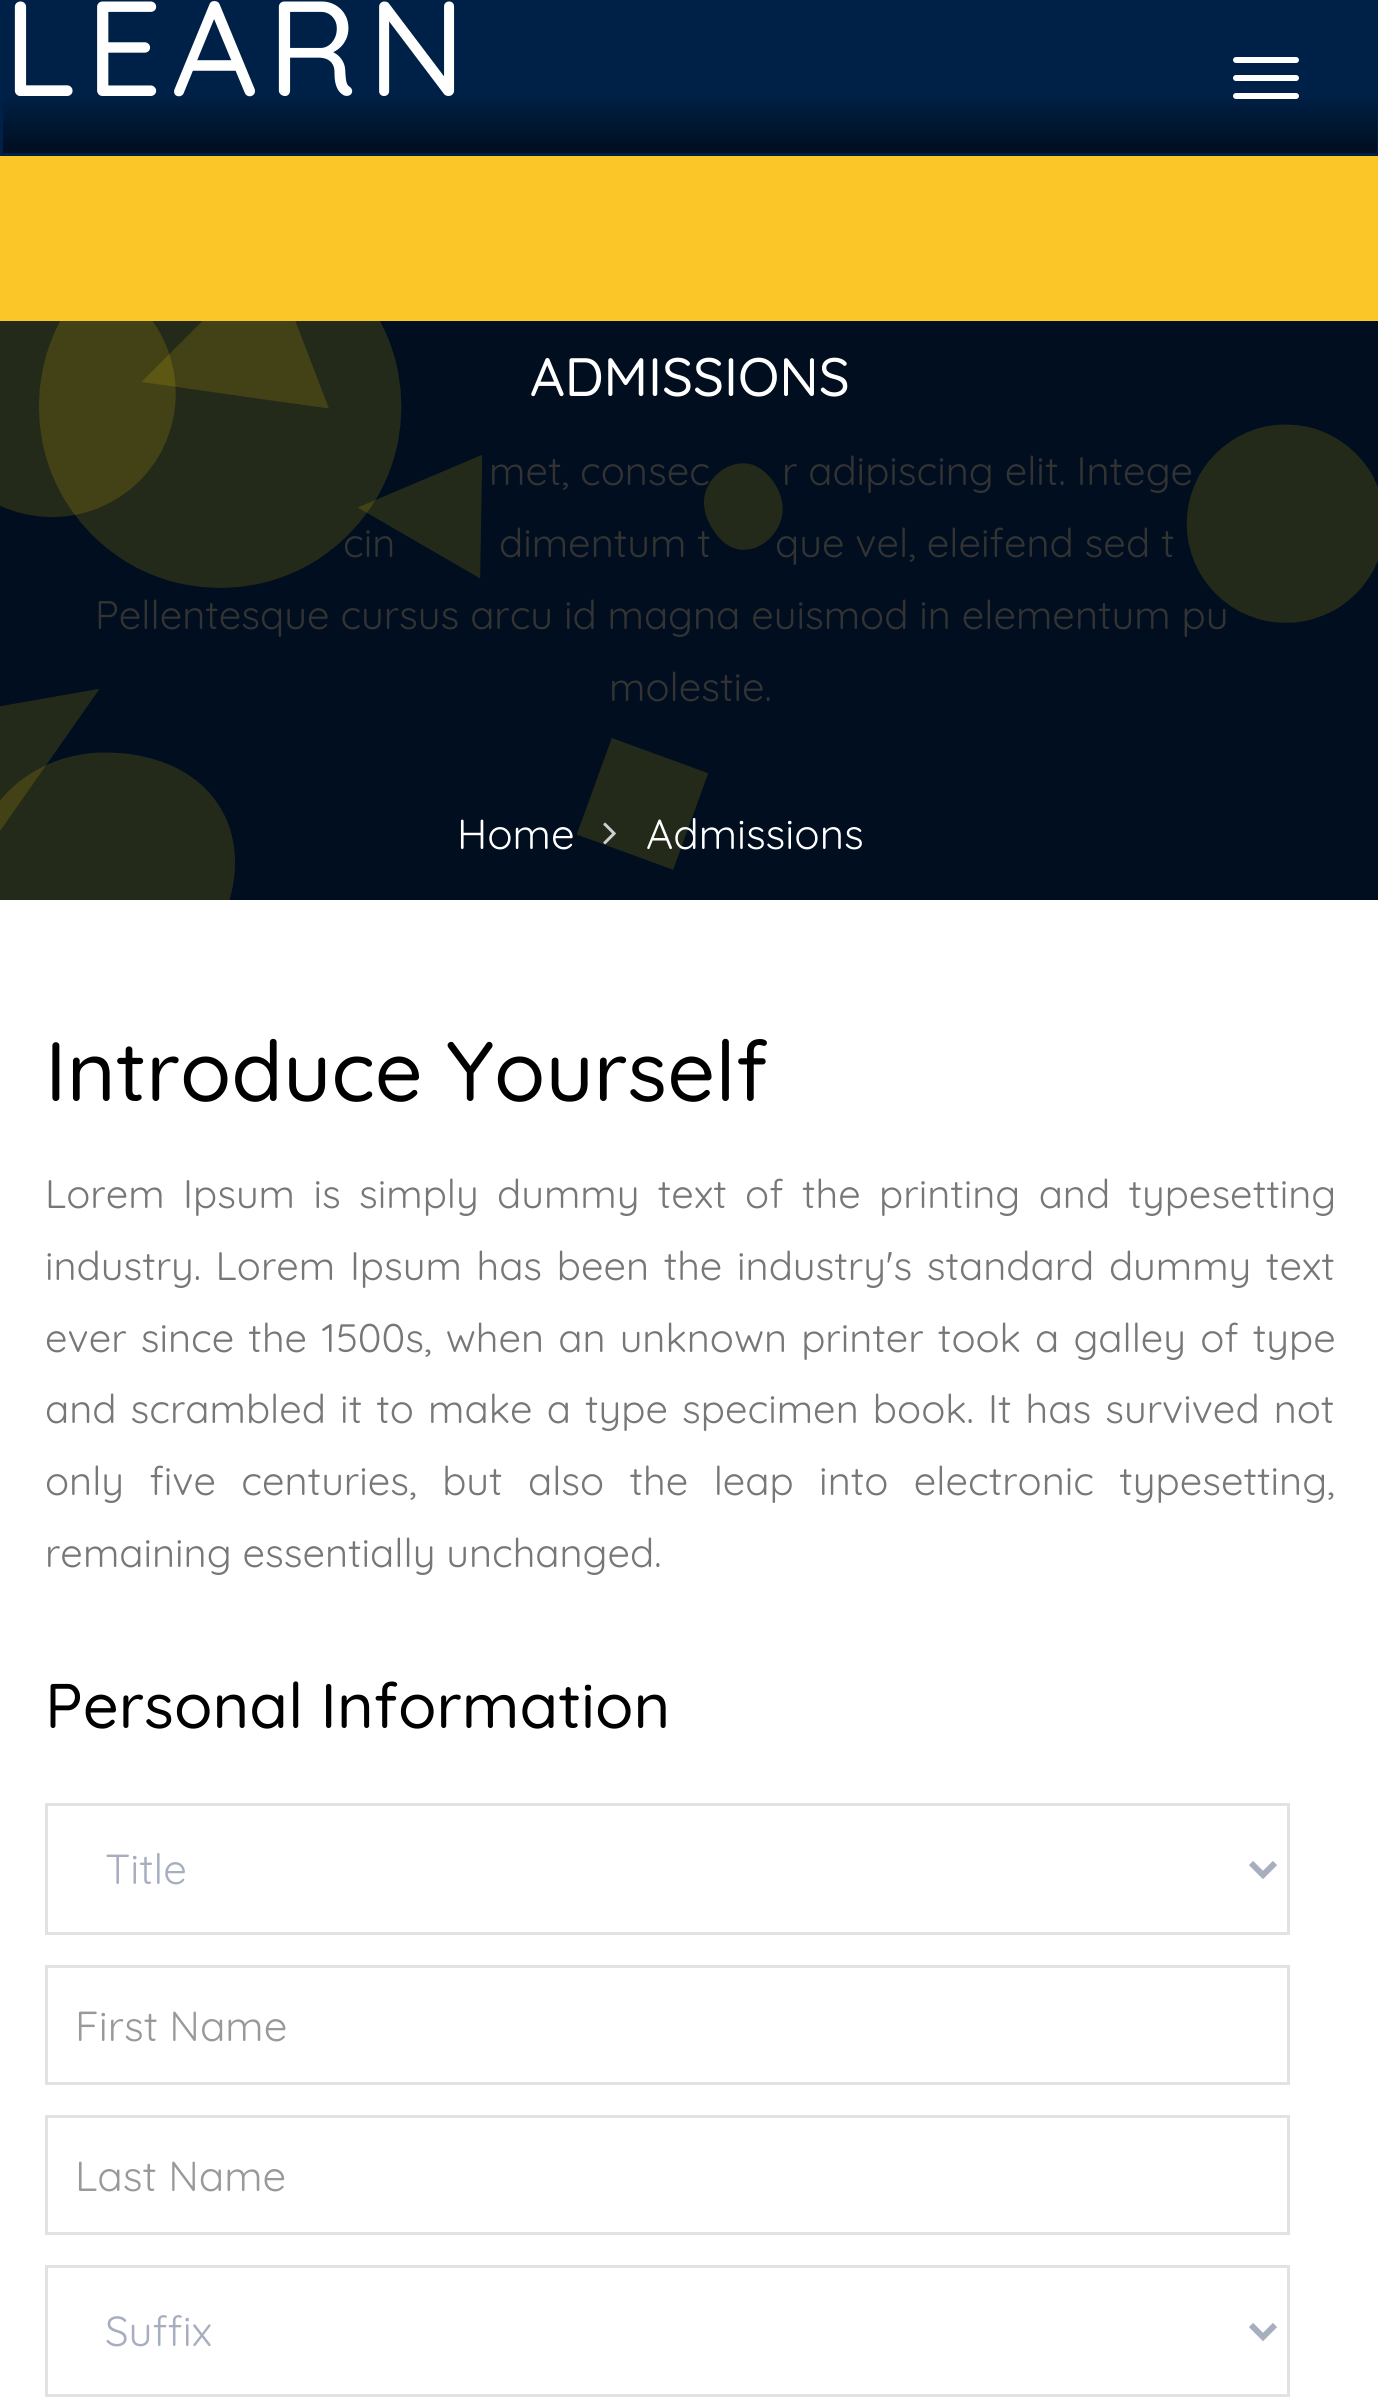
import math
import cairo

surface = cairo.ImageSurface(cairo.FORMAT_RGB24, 1378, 2397)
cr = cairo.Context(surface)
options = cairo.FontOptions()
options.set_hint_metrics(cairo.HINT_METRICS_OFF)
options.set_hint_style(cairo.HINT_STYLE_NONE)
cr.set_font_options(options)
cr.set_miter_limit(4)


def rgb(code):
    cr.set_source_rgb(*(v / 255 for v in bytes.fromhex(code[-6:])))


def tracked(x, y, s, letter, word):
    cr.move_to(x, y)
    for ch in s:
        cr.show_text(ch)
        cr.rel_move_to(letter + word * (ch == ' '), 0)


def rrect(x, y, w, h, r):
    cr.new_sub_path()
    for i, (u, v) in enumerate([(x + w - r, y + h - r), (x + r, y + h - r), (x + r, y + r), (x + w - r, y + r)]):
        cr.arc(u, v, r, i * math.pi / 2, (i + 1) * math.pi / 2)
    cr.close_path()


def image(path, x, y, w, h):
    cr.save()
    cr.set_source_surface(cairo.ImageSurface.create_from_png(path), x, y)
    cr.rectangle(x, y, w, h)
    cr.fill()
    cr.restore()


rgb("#ffffff")
cr.paint()
gradient = cairo.LinearGradient(690, 3, 690, 153)
gradient.add_color_stop_rgba(0.6, 0, 0.129, 0.278, 1)
gradient.add_color_stop_rgba(1, 0, 0.055, 0.122, 1)
cr.set_source(gradient)
cr.rectangle(3, 3, 1374, 150)
cr.fill()
cr.rectangle(1.5, 1.5, 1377, 153)
rgb("#002147")
cr.set_line_width(3)
cr.stroke()
rgb("#ffffff")
rrect(1233, 57, 66, 6, 3)
cr.fill()
rrect(1233, 75, 66, 6, 3)
cr.fill()
rrect(1233, 93, 66, 6, 3)
cr.fill()
rgb("#fbc628")
cr.rectangle(0, 156, 1378, 165)
cr.fill()
image("img/1.png", 0, 321, 1378, 579)
image("img/2.png", 603, 822, 13, 23)
cr.rectangle(46.5, 1804.5, 1242, 129)
rgb("#e2e2e3")
cr.stroke()
cr.new_path()
cr.move_to(1251, 1863)
cr.line_to(1263, 1875)
cr.line_to(1275, 1863)
rgb("#a7aebf")
cr.set_line_width(6)
cr.stroke()
cr.rectangle(46.5, 1966.5, 1242, 117)
rgb("#e2e2e3")
cr.set_line_width(3)
cr.stroke()
cr.rectangle(46.5, 2116.5, 1242, 117)
cr.stroke()
cr.rectangle(46.5, 2266.5, 1242, 129)
cr.stroke()
cr.new_path()
cr.move_to(1251, 2325)
cr.line_to(1263, 2337)
cr.line_to(1275, 2325)
rgb("#a7aebf")
cr.set_line_width(6)
cr.stroke()
cr.select_font_face("Quicksand Medium")
cr.set_font_size(135)
rgb("#ffffff")
tracked(3, 96, "LEARN", 9, 0)
cr.set_font_size(54)
cr.move_to(530, 396)
cr.show_text("ADMISSIONS")
cr.select_font_face("Quicksand")
cr.set_font_size(39.9)
rgb("#333333")
for x, y, s in [
    (489, 485, "met, consec"),
    (782, 485, "r adipiscing elit. Intege"),
    (343, 557, "cin"),
    (499, 557, "dimentum t"),
    (775, 557, "que vel, eleifend sed t"),
    (95, 629, "Pellentesque cursus arcu id magna euismod in elementum pu"),
    (609, 701, "molestie."),
]:
    cr.move_to(x, y)
    cr.show_text(s)
cr.set_font_size(42)
rgb("#ffffff")
cr.move_to(457, 849)
cr.show_text("Home")
cr.move_to(646, 849)
cr.show_text("Admissions")
cr.select_font_face("Quicksand Medium")
cr.set_font_size(84)
rgb("#000000")
cr.move_to(45, 1101)
cr.show_text("Introduce Yourself")
cr.select_font_face("Quicksand")
cr.set_font_size(39.9)
rgb("#777777")
tracked(45, 1208, "Lorem Ipsum is simply dummy text of the printing and typesetting", 0, 7.5)
tracked(45, 1280, "industry. Lorem Ipsum has been the industry's standard dummy text", 0, 3.75)
tracked(45, 1352, "ever since the 1500s, when an unknown printer took a galley of type", 0, 3.25)
tracked(45, 1423, "and scrambled it to make a type specimen book. It has survived not", 0, 3.25)
tracked(45, 1495, "only five centuries, but also the leap into electronic typesetting,", 0, 14.5)
cr.move_to(45, 1567)
cr.show_text("remaining essentially unchanged.")
cr.select_font_face("Quicksand Medium")
cr.set_font_size(63)
rgb("#000000")
cr.move_to(45, 1728)
cr.show_text("Personal Information")
cr.select_font_face("Quicksand")
cr.set_font_size(42)
rgb("#a7aebf")
cr.move_to(105, 1884)
cr.show_text("Title")
rgb("#999999")
cr.move_to(75, 2041)
cr.show_text("First Name")
cr.move_to(75, 2191)
cr.show_text("Last Name")
rgb("#a7aebf")
cr.move_to(105, 2346)
cr.show_text("Suffix")
surface.write_to_png("page.png")
